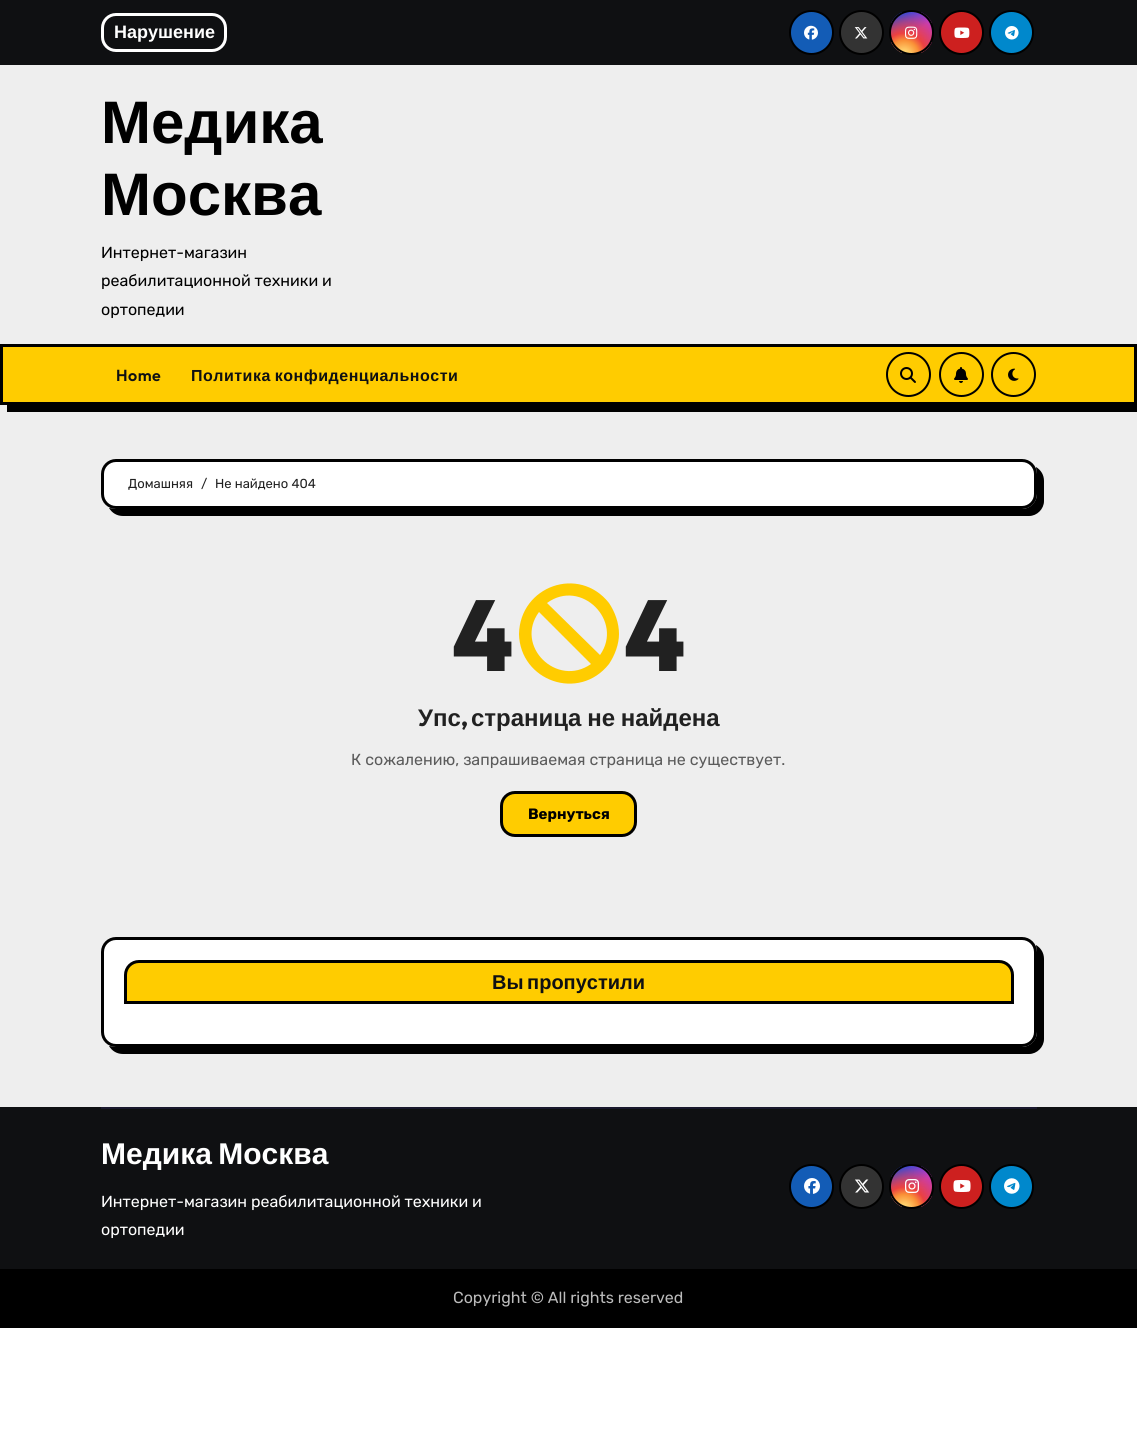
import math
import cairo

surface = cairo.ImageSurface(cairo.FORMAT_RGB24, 1137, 1454)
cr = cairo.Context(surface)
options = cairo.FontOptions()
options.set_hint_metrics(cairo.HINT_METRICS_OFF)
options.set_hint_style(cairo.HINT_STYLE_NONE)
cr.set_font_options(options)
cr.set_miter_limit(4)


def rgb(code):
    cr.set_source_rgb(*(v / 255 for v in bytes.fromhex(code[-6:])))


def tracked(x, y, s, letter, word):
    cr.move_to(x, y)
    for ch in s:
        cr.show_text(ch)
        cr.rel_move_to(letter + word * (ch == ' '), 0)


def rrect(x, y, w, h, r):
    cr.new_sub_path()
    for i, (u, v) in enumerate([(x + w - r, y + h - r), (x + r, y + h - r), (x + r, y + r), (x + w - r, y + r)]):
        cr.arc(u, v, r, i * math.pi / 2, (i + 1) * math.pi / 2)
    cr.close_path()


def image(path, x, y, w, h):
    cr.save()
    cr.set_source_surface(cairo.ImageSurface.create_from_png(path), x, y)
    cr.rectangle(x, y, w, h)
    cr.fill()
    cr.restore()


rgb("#ffffff")
cr.paint()
rgb("#eeeeee")
cr.rectangle(0, 65, 1137, 1042)
cr.fill()
rgb("#0f1012")
cr.rectangle(0, 0, 1137, 65)
cr.fill()
rrect(102.5, 14.5, 123, 36, 13.5)
rgb("#ffffff")
cr.set_line_width(3)
cr.stroke()
rgb("#135cb6")
cr.arc(811.5, 32.5, 21.5, 0, 2 * math.pi)
cr.fill_preserve()
rgb("#000000")
cr.set_line_width(2)
cr.stroke()
image("img/1.png", 804, 25, 14, 15)
rgb("#333333")
cr.arc(861.5, 32.5, 21.5, 0, 2 * math.pi)
cr.fill_preserve()
rgb("#000000")
cr.stroke()
image("img/2.png", 854, 27, 14, 12)
cr.save()
rrect(889, 10, 45, 45, 22.5)
cr.clip()
gradient = cairo.LinearGradient(891, 12, 932, 53)
gradient.add_color_stop_rgba(0.12, 0.137, 0.294, 0.843, 1)
gradient.add_color_stop_rgba(0.58, 0.765, 0.235, 0.745, 1)
cr.set_source(gradient)
cr.rectangle(891, 12, 41, 41)
cr.fill()
gradient = cairo.RadialGradient(904, 55, 0, 904, 55, 52)
gradient.add_color_stop_rgba(0, 1, 0.882, 0.49, 1)
gradient.add_color_stop_rgba(0.1, 1, 0.804, 0.412, 1)
gradient.add_color_stop_rgba(0.28, 0.98, 0.569, 0.216, 1)
gradient.add_color_stop_rgba(0.42, 0.922, 0.255, 0.255, 1)
gradient.add_color_stop_rgba(0.82, 0.922, 0.255, 0.255, 0)
cr.set_source(gradient)
cr.rectangle(891, 13, 41, 40)
cr.fill()
cr.restore()
cr.arc(911.5, 32.5, 21.5, 0, 2 * math.pi)
cr.stroke()
image("img/3.png", 905, 26, 13, 13)
rgb("#cd201f")
cr.arc(961.5, 32.5, 21.5, 0, 2 * math.pi)
cr.fill_preserve()
rgb("#000000")
cr.stroke()
image("img/4.png", 954, 27, 16, 11)
rgb("#0088cc")
cr.arc(1011.5, 32.5, 21.5, 0, 2 * math.pi)
cr.fill_preserve()
rgb("#000000")
cr.stroke()
image("img/5.png", 1005, 26, 14, 14)
cr.new_path()
cr.move_to(7, 405)
cr.line_to(7, 412)
cr.line_to(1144, 412)
cr.line_to(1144, 351)
cr.line_to(1137, 351)
cr.line_to(1137, 405)
cr.close_path()
cr.fill()
rgb("#ffcc00")
cr.rectangle(1.5, 345.5, 1134, 58)
cr.fill_preserve()
rgb("#000000")
cr.set_line_width(3)
cr.stroke()
cr.arc(908.5, 374.5, 21.5, 0, 2 * math.pi)
cr.set_line_width(2)
cr.stroke()
image("img/6.png", 900, 367, 16, 16)
cr.arc(961.5, 374.5, 21.5, 0, 2 * math.pi)
cr.stroke()
image("img/7.png", 954, 367, 14, 16)
cr.arc(1013.5, 374.5, 21.5, 0, 2 * math.pi)
cr.stroke()
image("img/8.png", 1008, 368, 11, 13)
cr.new_path()
cr.move_to(109, 508)
cr.curve_to(112, 513, 117, 516, 123, 516)
cr.line_to(1029, 516)
cr.curve_to(1037, 516, 1044, 509, 1044, 501)
cr.line_to(1044, 481)
cr.curve_to(1044, 475, 1041, 470, 1036, 467)
cr.curve_to(1036, 469, 1037, 472, 1037, 474)
cr.line_to(1037, 494)
cr.curve_to(1037, 502, 1030, 509, 1022, 509)
cr.line_to(116, 509)
cr.curve_to(114, 509, 111, 508, 109, 508)
cr.close_path()
cr.fill()
rgb("#ffffff")
rrect(102.5, 460.5, 933, 47, 13.5)
cr.fill_preserve()
rgb("#000000")
cr.set_line_width(3)
cr.stroke()
rgb("#ffcc00")
cr.new_path()
cr.move_to(591, 664)
cr.line_to(539, 612)
cr.curve_to(514, 646, 557, 688, 591, 664)
cr.close_path()
cr.move_to(600, 655)
cr.curve_to(624, 621, 581, 578, 547, 603)
cr.close_path()
cr.move_to(519, 634)
cr.curve_to(520, 586, 579, 565, 609, 603)
cr.curve_to(615, 612, 619, 623, 619, 634)
cr.curve_to(619, 644, 615, 655, 609, 664)
cr.curve_to(579, 702, 520, 681, 519, 634)
cr.close_path()
cr.fill()
rrect(501.5, 792.5, 134, 43, 13.5)
cr.fill_preserve()
rgb("#000000")
cr.stroke()
cr.new_path()
cr.move_to(109, 1046)
cr.curve_to(112, 1051, 117, 1054, 123, 1054)
cr.line_to(1029, 1054)
cr.curve_to(1037, 1054, 1044, 1047, 1044, 1039)
cr.line_to(1044, 959)
cr.curve_to(1044, 953, 1041, 948, 1036, 945)
cr.curve_to(1036, 947, 1037, 950, 1037, 952)
cr.line_to(1037, 1032)
cr.curve_to(1037, 1040, 1030, 1047, 1022, 1047)
cr.line_to(116, 1047)
cr.curve_to(114, 1047, 111, 1046, 109, 1046)
cr.close_path()
cr.fill()
rgb("#ffffff")
rrect(102.5, 938.5, 933, 107, 13.5)
cr.fill_preserve()
rgb("#000000")
cr.stroke()
rgb("#ffcc00")
cr.new_path()
cr.move_to(139, 961.5)
cr.line_to(999, 961.5)
cr.curve_to(1006.5, 961.5, 1012.5, 967.5, 1012.5, 975)
cr.line_to(1012.5, 1002.5)
cr.line_to(125.5, 1002.5)
cr.line_to(125.5, 975)
cr.curve_to(125.5, 967.5, 131.5, 961.5, 139, 961.5)
cr.close_path()
cr.fill_preserve()
rgb("#000000")
cr.stroke()
rgb("#0f1012")
cr.rectangle(0, 1107, 1137, 162)
cr.fill()
rgb("#1a182e")
cr.rectangle(101, 1107, 936, 2)
cr.fill()
rgb("#135cb6")
cr.arc(811.5, 1186.5, 21.5, 0, 2 * math.pi)
cr.fill_preserve()
rgb("#000000")
cr.set_line_width(2)
cr.stroke()
image("img/9.png", 804, 1178, 16, 16)
rgb("#333333")
cr.arc(861.5, 1186.5, 21.5, 0, 2 * math.pi)
cr.fill_preserve()
rgb("#000000")
cr.stroke()
image("img/10.png", 855, 1179, 15, 14)
cr.save()
rrect(889, 1164, 45, 45, 22.5)
cr.clip()
gradient = cairo.LinearGradient(891, 1166, 932, 1207)
gradient.add_color_stop_rgba(0.12, 0.137, 0.294, 0.843, 1)
gradient.add_color_stop_rgba(0.58, 0.765, 0.235, 0.745, 1)
cr.set_source(gradient)
cr.rectangle(891, 1166, 41, 41)
cr.fill()
gradient = cairo.RadialGradient(904, 1209, 0, 904, 1209, 52)
gradient.add_color_stop_rgba(0, 1, 0.882, 0.49, 1)
gradient.add_color_stop_rgba(0.1, 1, 0.804, 0.412, 1)
gradient.add_color_stop_rgba(0.28, 0.98, 0.569, 0.216, 1)
gradient.add_color_stop_rgba(0.42, 0.922, 0.255, 0.255, 1)
gradient.add_color_stop_rgba(0.82, 0.922, 0.255, 0.255, 0)
cr.set_source(gradient)
cr.rectangle(891, 1167, 41, 40)
cr.fill()
cr.restore()
cr.arc(911.5, 1186.5, 21.5, 0, 2 * math.pi)
cr.stroke()
image("img/11.png", 905, 1179, 14, 14)
rgb("#cd201f")
cr.arc(961.5, 1186.5, 21.5, 0, 2 * math.pi)
cr.fill_preserve()
rgb("#000000")
cr.stroke()
image("img/12.png", 953, 1180, 18, 12)
rgb("#0088cc")
cr.arc(1011.5, 1186.5, 21.5, 0, 2 * math.pi)
cr.fill_preserve()
rgb("#000000")
cr.stroke()
image("img/13.png", 1004, 1178, 16, 16)
cr.rectangle(0, 1269, 1137, 59)
cr.fill()
cr.select_font_face("Liberation Sans", cairo.FONT_SLANT_NORMAL, cairo.FONT_WEIGHT_BOLD)
cr.set_font_size(18)
rgb("#ffffff")
cr.move_to(114, 38)
cr.show_text("Нарушение")
cr.set_font_size(60)
rgb("#000000")
cr.move_to(101, 143)
cr.show_text("Медика")
cr.move_to(101, 215)
cr.show_text("Москва")
cr.select_font_face("Rubik Light")
cr.set_font_size(16)
for x, y, s in [
    (101, 258, "Интернет-магазин"),
    (101, 286, "реабилитационной техники и"),
    (101, 315, "ортопедии"),
]:
    cr.move_to(x, y)
    cr.show_text(s)
cr.select_font_face("Outfit SemiBold")
rgb("#0f1012")
tracked(116, 381, "Home", 0.5, 0)
cr.select_font_face("Liberation Sans", cairo.FONT_SLANT_NORMAL, cairo.FONT_WEIGHT_BOLD)
tracked(191, 381, "Политика конфиденциальности", 0.5, -1)
cr.select_font_face("Rubik Light")
cr.set_font_size(13)
rgb("#212121")
for x, y, s in [
    (128, 488, "Домашняя"),
    (201, 488, "/"),
    (215, 488, "Не найдено 404"),
]:
    cr.move_to(x, y)
    cr.show_text(s)
cr.select_font_face("Outfit ExtraBold")
cr.set_font_size(100)
cr.move_to(452, 671)
cr.show_text("4")
cr.move_to(624, 671)
cr.show_text("4")
cr.select_font_face("Liberation Sans", cairo.FONT_SLANT_NORMAL, cairo.FONT_WEIGHT_BOLD)
cr.set_font_size(24)
cr.move_to(418, 726)
cr.show_text("Упс")
cr.select_font_face("Outfit ExtraBold")
cr.move_to(461, 726)
cr.show_text(",")
cr.select_font_face("Liberation Sans", cairo.FONT_SLANT_NORMAL, cairo.FONT_WEIGHT_BOLD)
tracked(471, 726, "страница не найдена", 0, -1)
cr.select_font_face("Rubik Light")
cr.set_font_size(16)
rgb("#5b5b5b")
cr.move_to(351, 765)
cr.show_text("К сожалению, запрашиваемая страница не существует.")
cr.select_font_face("Rubik", cairo.FONT_SLANT_NORMAL, cairo.FONT_WEIGHT_BOLD)
cr.set_font_size(15)
rgb("#000000")
cr.move_to(528, 819)
cr.show_text("Вернуться")
cr.select_font_face("Liberation Sans", cairo.FONT_SLANT_NORMAL, cairo.FONT_WEIGHT_BOLD)
cr.set_font_size(20)
rgb("#0f1012")
tracked(492, 989, "Вы пропустили", 0, -2)
cr.set_font_size(30)
rgb("#ffffff")
tracked(101, 1164, "Медика Москва", 0, -2)
cr.select_font_face("Rubik Light")
cr.set_font_size(16)
cr.move_to(101, 1207)
cr.show_text("Интернет-магазин реабилитационной техники и")
cr.move_to(101, 1235)
cr.show_text("ортопедии")
rgb("#bbbbbb")
cr.move_to(453, 1303)
cr.show_text("Copyright © All rights reserved")
surface.write_to_png("page.png")
